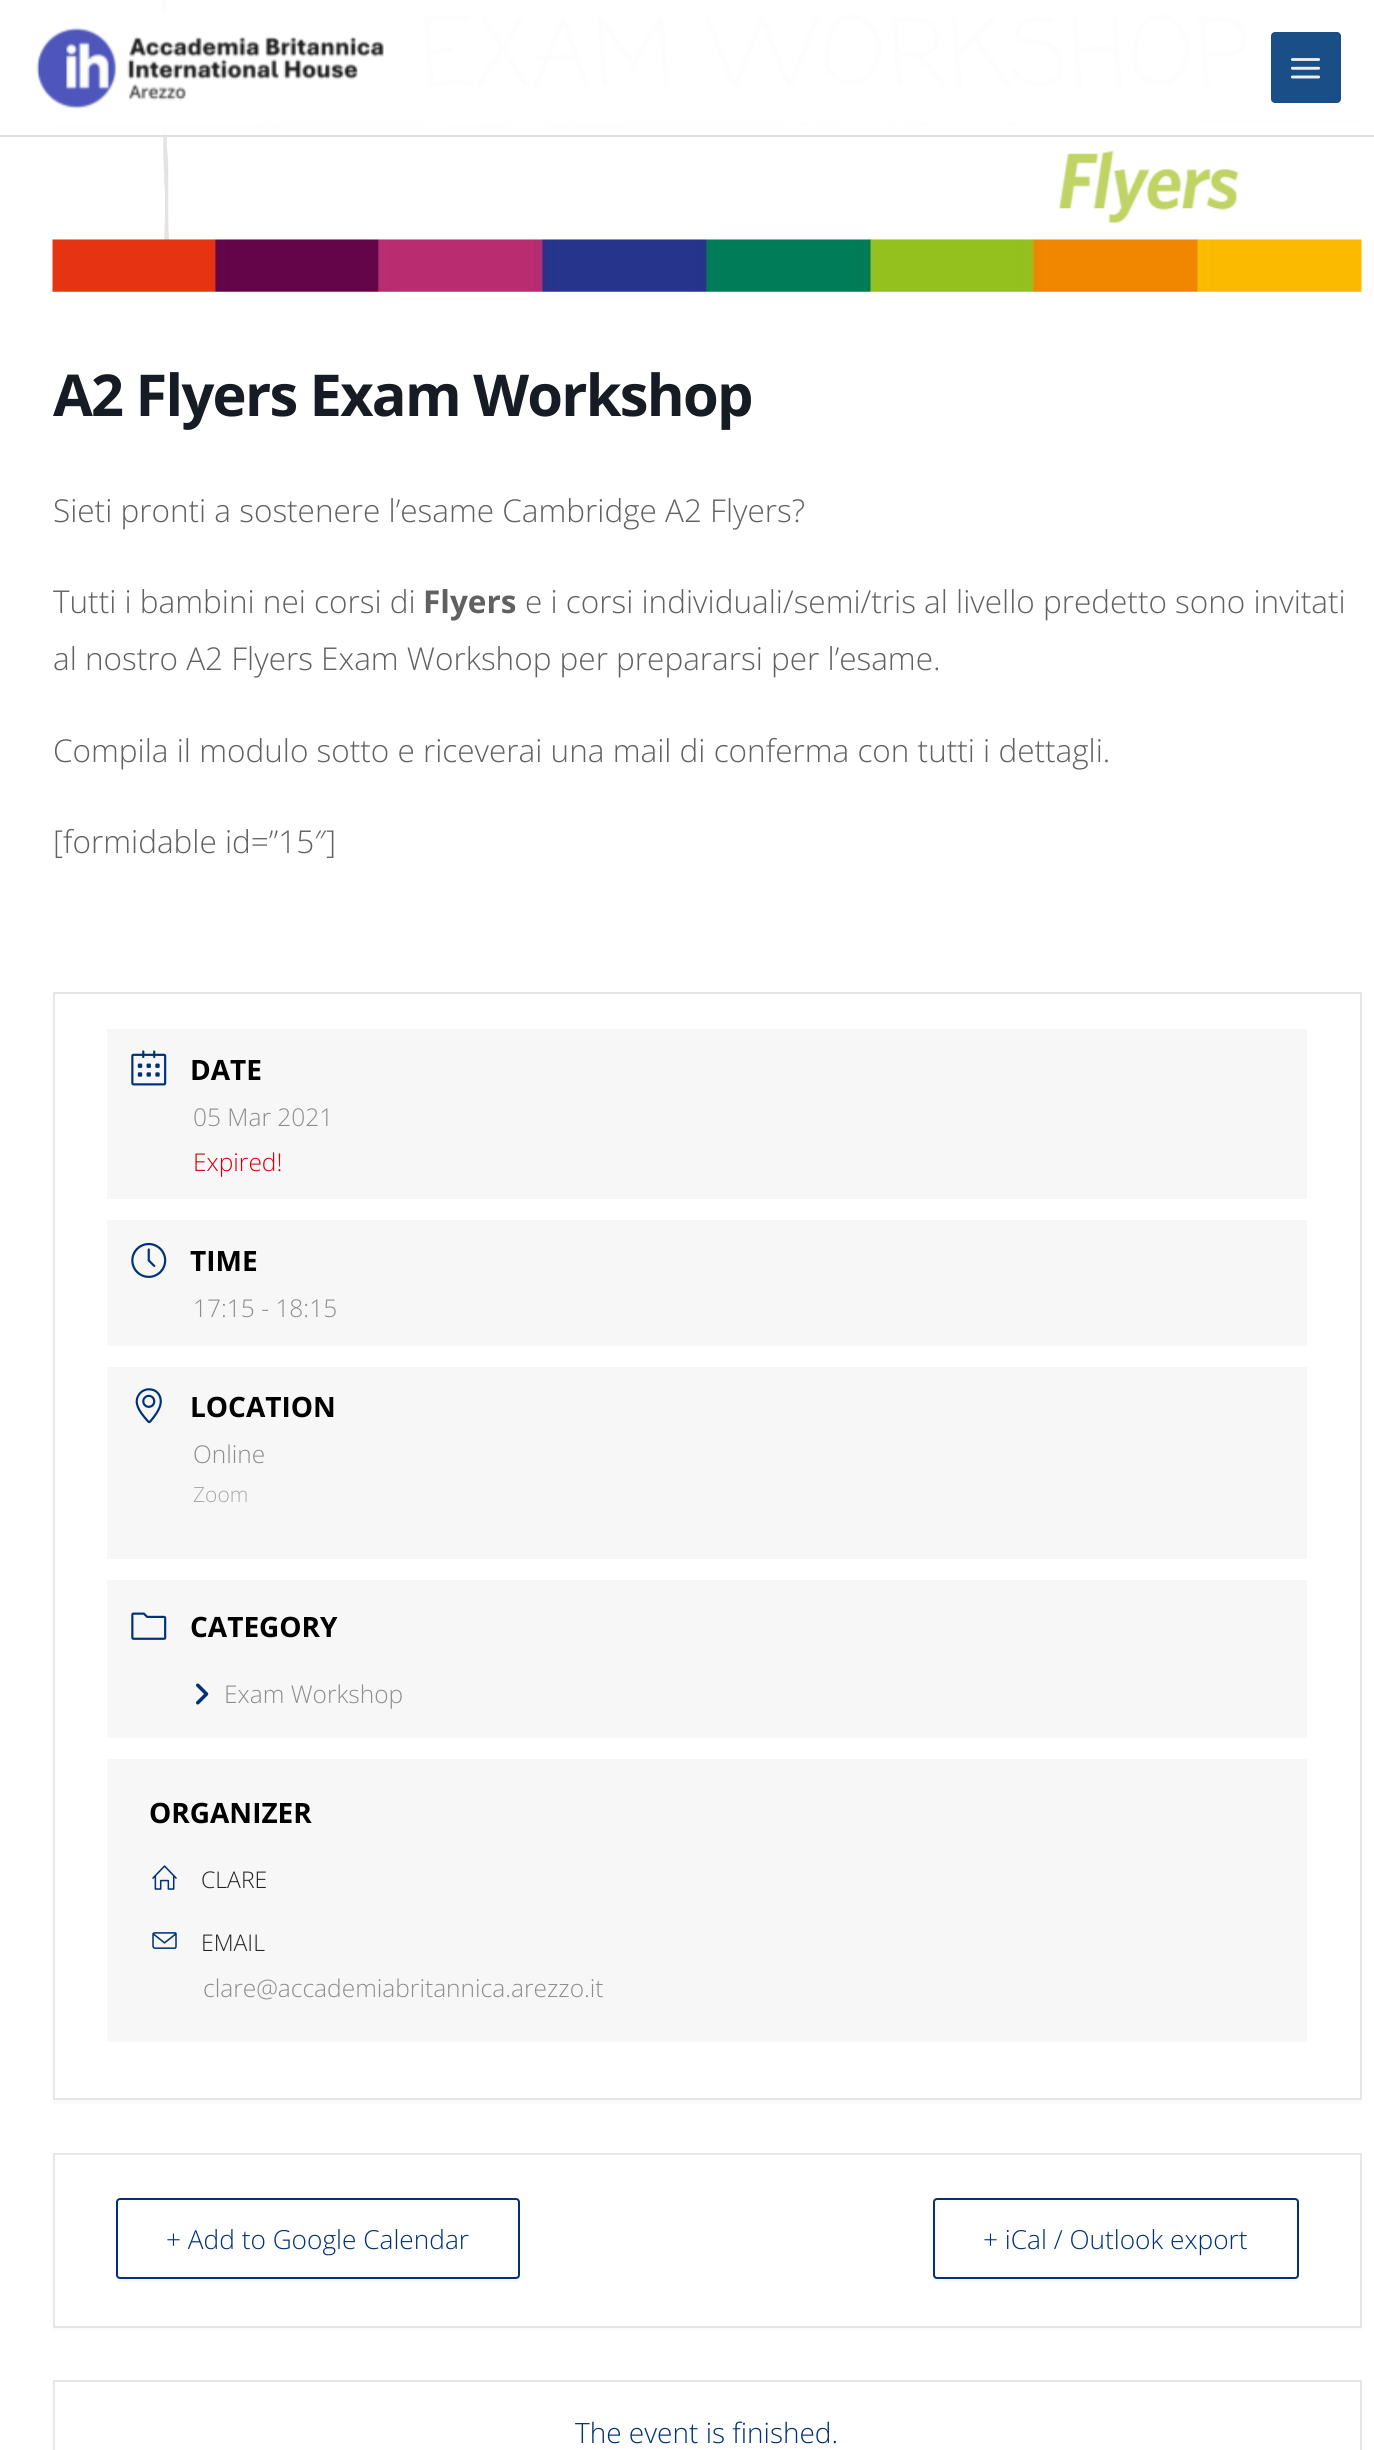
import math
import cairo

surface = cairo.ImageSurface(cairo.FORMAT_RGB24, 1374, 2450)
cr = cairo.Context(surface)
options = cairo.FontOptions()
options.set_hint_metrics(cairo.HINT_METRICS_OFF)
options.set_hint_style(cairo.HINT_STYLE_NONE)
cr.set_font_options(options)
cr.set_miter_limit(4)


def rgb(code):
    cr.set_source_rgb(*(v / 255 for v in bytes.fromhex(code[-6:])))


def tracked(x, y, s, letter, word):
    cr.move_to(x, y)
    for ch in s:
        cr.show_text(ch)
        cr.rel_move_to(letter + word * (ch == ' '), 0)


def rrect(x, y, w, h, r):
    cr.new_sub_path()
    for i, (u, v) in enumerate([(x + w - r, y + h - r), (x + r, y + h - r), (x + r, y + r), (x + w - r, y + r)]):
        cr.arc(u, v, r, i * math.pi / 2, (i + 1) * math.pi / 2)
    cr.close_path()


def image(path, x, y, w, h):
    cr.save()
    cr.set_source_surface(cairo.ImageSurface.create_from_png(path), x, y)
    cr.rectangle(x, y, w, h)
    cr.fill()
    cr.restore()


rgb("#ffffff")
cr.paint()
image("img/3.png", 52, 0, 1310, 292)
cr.set_source_rgba(1, 1, 1, 0.9)
cr.rectangle(52, 0, 1310, 135)
cr.fill()
cr.rectangle(52, 14, 1310, 117)
cr.fill()
rgb("#e0e0e0")
cr.rectangle(0, 135, 1374, 2)
cr.fill()
image("img/1.png", 36, 27, 348, 82)
rgb("#1a4e86")
rrect(1271, 32, 70, 71, 4)
cr.fill()
image("img/2.png", 1290, 58, 31, 21)
rgb("#fbfbfb")
cr.new_path()
cr.move_to(53, 2100)
cr.line_to(53, 2104)
cr.line_to(1362, 2104)
cr.line_to(1362, 996)
cr.line_to(1362, 2100)
cr.close_path()
cr.fill()
cr.rectangle(54, 993, 1307, 1106)
rgb("#e6e6e6")
cr.stroke()
rgb("#f7f7f7")
cr.rectangle(107, 1029, 1200, 170)
cr.fill()
image("img/4.png", 131, 1050, 36, 36)
cr.rectangle(107, 1220, 1200, 126)
cr.fill()
image("img/5.png", 131, 1242, 36, 36)
cr.rectangle(107, 1367, 1200, 192)
cr.fill()
image("img/6.png", 135, 1388, 27, 36)
cr.rectangle(107, 1580, 1200, 158)
cr.fill()
image("img/7.png", 131, 1612, 36, 28)
image("img/8.png", 196, 1683, 13, 22)
cr.rectangle(107, 1759, 1200, 283)
cr.fill()
image("img/9.png", 152, 1865, 25, 25)
image("img/10.png", 152, 1932, 25, 17)
rgb("#fbfbfb")
cr.new_path()
cr.move_to(53, 2328)
cr.line_to(53, 2331)
cr.line_to(1362, 2331)
cr.line_to(1362, 2156)
cr.line_to(1362, 2328)
cr.close_path()
cr.fill()
cr.rectangle(54, 2154, 1307, 173)
rgb("#e6e6e6")
cr.stroke()
rgb("#f7f7f7")
cr.new_path()
cr.move_to(116, 2277)
cr.line_to(116, 2278)
cr.curve_to(116, 2280, 118, 2282, 120, 2282)
cr.line_to(516, 2282)
cr.curve_to(518, 2282, 520, 2280, 520, 2278)
cr.line_to(520, 2205)
cr.line_to(520, 2275)
cr.curve_to(520, 2277, 518, 2278, 516, 2278)
cr.line_to(119, 2278)
cr.curve_to(118, 2278, 117, 2278, 116, 2277)
cr.close_path()
cr.fill()
rgb("#ffffff")
rrect(117, 2199, 402, 79, 3)
cr.fill_preserve()
rgb("#003178")
cr.stroke()
rgb("#f7f7f7")
cr.new_path()
cr.move_to(933, 2276)
cr.line_to(933, 2278)
cr.curve_to(933, 2280, 935, 2282, 937, 2282)
cr.line_to(1295, 2282)
cr.curve_to(1297, 2282, 1299, 2280, 1299, 2278)
cr.line_to(1299, 2206)
cr.line_to(1298, 2204)
cr.line_to(1298, 2275)
cr.curve_to(1298, 2277, 1297, 2278, 1295, 2278)
cr.line_to(936, 2278)
cr.curve_to(935, 2278, 934, 2278, 933, 2276)
cr.close_path()
cr.fill()
rgb("#ffffff")
rrect(934, 2199, 364, 79, 3)
cr.fill_preserve()
rgb("#003178")
cr.stroke()
cr.rectangle(54, 2381, 1307, 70)
rgb("#e6e6e6")
cr.stroke()
cr.select_font_face("Open Sans", cairo.FONT_SLANT_NORMAL, cairo.FONT_WEIGHT_BOLD)
cr.set_font_size(57.75)
rgb("#171c24")
tracked(53, 416, "A2 Flyers Exam Workshop", -1.75, 0)
cr.select_font_face("Open Sans Light")
cr.set_font_size(31.5)
rgb("#616161")
cr.move_to(53, 522)
cr.show_text("Sieti pronti a sostenere l’esame Cambridge A2 Flyers?")
cr.move_to(53, 613)
cr.show_text("Tutti i bambini nei corsi di")
cr.select_font_face("Open Sans", cairo.FONT_SLANT_NORMAL, cairo.FONT_WEIGHT_BOLD)
cr.move_to(423, 613)
cr.show_text("Flyers")
cr.select_font_face("Open Sans Light")
for x, y, s in [
    (525, 613, "e i corsi individuali/semi/tris al livello predetto sono invitati"),
    (53, 670, "al nostro A2 Flyers Exam Workshop per prepararsi per l’esame."),
    (53, 762, "Compila il modulo sotto e riceverai una mail di conferma con tutti i dettagli."),
    (53, 853, "[formidable id=”15″]"),
]:
    cr.move_to(x, y)
    cr.show_text(s)
cr.select_font_face("Open Sans", cairo.FONT_SLANT_NORMAL, cairo.FONT_WEIGHT_BOLD)
cr.set_font_size(28)
rgb("#000000")
cr.move_to(190, 1080)
cr.show_text("DATE")
cr.select_font_face("Open Sans Light")
cr.set_font_size(24.5)
rgb("#8d8d8d")
cr.move_to(193, 1126)
cr.show_text("05 Mar 2021")
rgb("#d8000c")
cr.move_to(193, 1171)
cr.show_text("Expired!")
cr.select_font_face("Open Sans", cairo.FONT_SLANT_NORMAL, cairo.FONT_WEIGHT_BOLD)
cr.set_font_size(28)
rgb("#000000")
cr.move_to(190, 1271)
cr.show_text("TIME")
cr.select_font_face("Open Sans Light")
cr.set_font_size(24.5)
rgb("#8d8d8d")
cr.move_to(193, 1317)
cr.show_text("17:15 - 18:15")
cr.select_font_face("Open Sans", cairo.FONT_SLANT_NORMAL, cairo.FONT_WEIGHT_BOLD)
cr.set_font_size(28)
rgb("#000000")
cr.move_to(190, 1417)
cr.show_text("LOCATION")
cr.select_font_face("Open Sans Light")
cr.set_font_size(24.5)
rgb("#8d8d8d")
cr.move_to(193, 1463)
cr.show_text("Online")
cr.set_font_size(21)
rgb("#a9a9a9")
cr.move_to(193, 1502)
cr.show_text("Zoom")
cr.select_font_face("Open Sans", cairo.FONT_SLANT_NORMAL, cairo.FONT_WEIGHT_BOLD)
cr.set_font_size(28)
rgb("#000000")
cr.move_to(190, 1637)
cr.show_text("CATEGORY")
cr.select_font_face("Open Sans Light")
cr.set_font_size(24.5)
rgb("#8d8d8d")
cr.move_to(224, 1703)
cr.show_text("Exam Workshop")
cr.select_font_face("Open Sans", cairo.FONT_SLANT_NORMAL, cairo.FONT_WEIGHT_BOLD)
cr.set_font_size(28)
rgb("#000000")
cr.move_to(149, 1823)
cr.show_text("ORGANIZER")
cr.select_font_face("Open Sans Light")
cr.set_font_size(23)
rgb("#222222")
cr.move_to(201, 1888)
cr.show_text("CLARE")
cr.move_to(201, 1951)
cr.show_text("EMAIL")
cr.set_font_size(24.5)
rgb("#8d8d8d")
cr.move_to(203, 1997)
cr.show_text("clare@accademiabritannica.arezzo.it")
cr.set_font_size(26.25)
rgb("#003178")
cr.move_to(166, 2249)
cr.show_text("+ Add to Google Calendar")
cr.move_to(983, 2249)
cr.show_text("+ iCal / Outlook export")
cr.set_font_size(28)
cr.move_to(575, 2443)
cr.show_text("The event is finished.")
surface.write_to_png("page.png")
